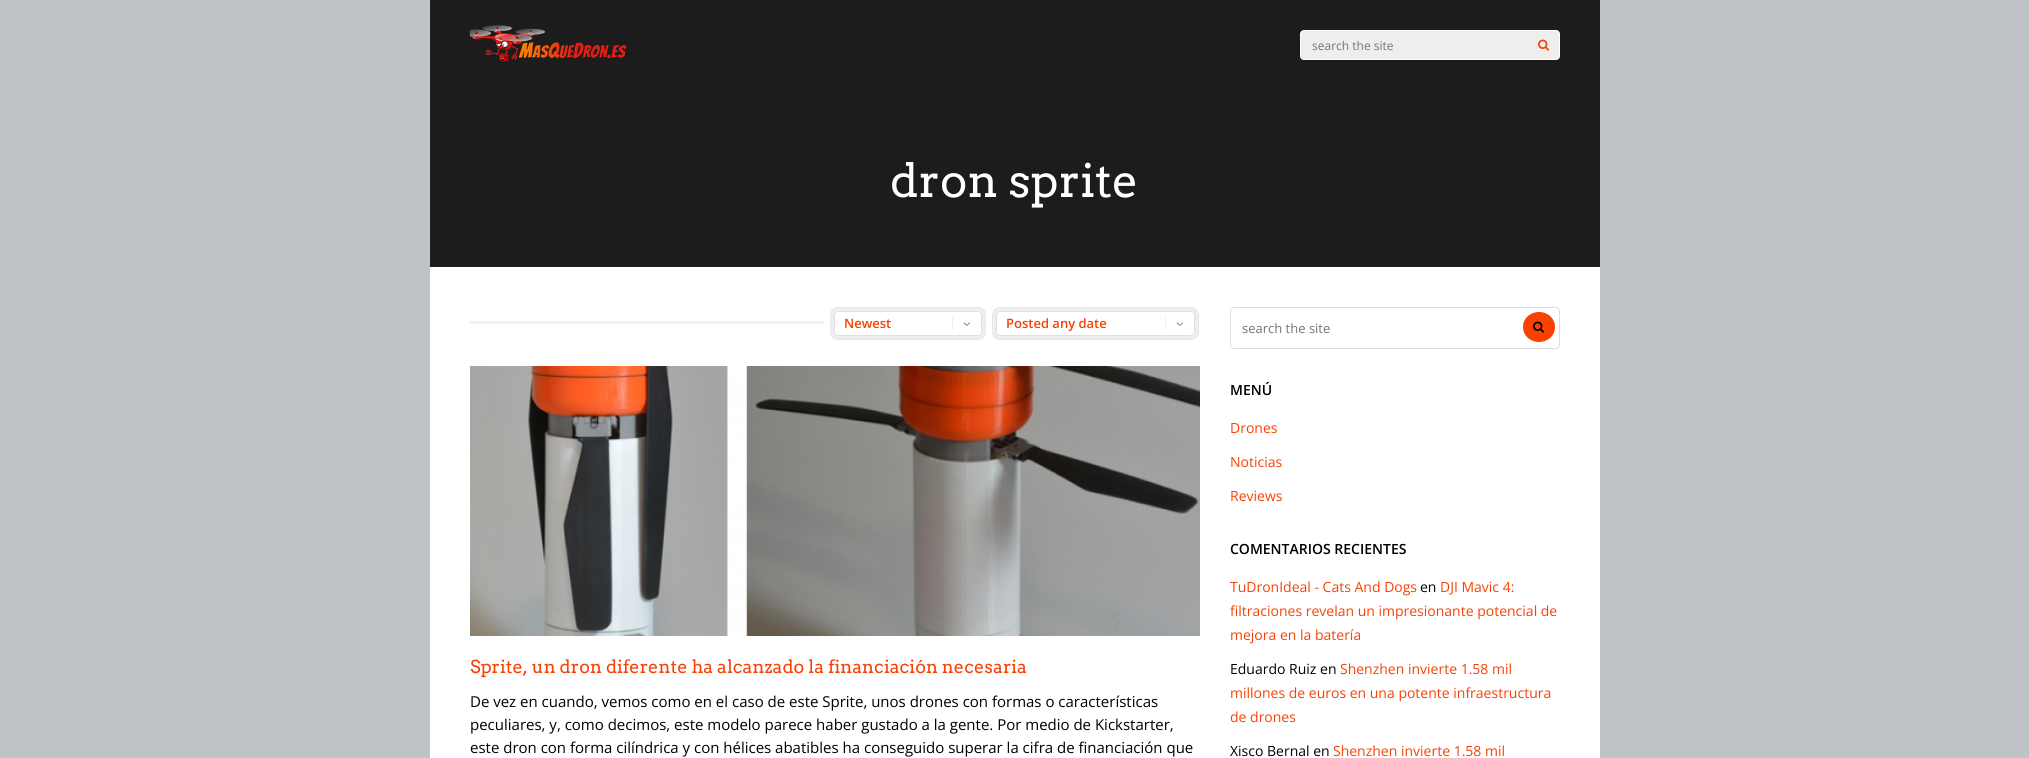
import math
import cairo

surface = cairo.ImageSurface(cairo.FORMAT_RGB24, 2029, 758)
cr = cairo.Context(surface)
options = cairo.FontOptions()
options.set_hint_metrics(cairo.HINT_METRICS_OFF)
options.set_hint_style(cairo.HINT_STYLE_NONE)
cr.set_font_options(options)
cr.set_miter_limit(4)


def rgb(code):
    cr.set_source_rgb(*(v / 255 for v in bytes.fromhex(code[-6:])))


def rrect(x, y, w, h, r):
    cr.new_sub_path()
    for i, (u, v) in enumerate([(x + w - r, y + h - r), (x + r, y + h - r), (x + r, y + r), (x + w - r, y + r)]):
        cr.arc(u, v, r, i * math.pi / 2, (i + 1) * math.pi / 2)
    cr.close_path()


def image(path, x, y, w, h):
    cr.save()
    cr.set_source_surface(cairo.ImageSurface.create_from_png(path), x, y)
    cr.rectangle(x, y, w, h)
    cr.fill()
    cr.restore()


rgb("#bdc3c7")
cr.paint()
rgb("#ffffff")
cr.rectangle(430, 267, 1170, 491)
cr.fill()
rgb("#1c1c1c")
cr.rectangle(430, 0, 1170, 267)
cr.fill()
image("img/1.png", 469, 25, 158, 37)
rgb("#eeeeee")
rrect(1300.5, 30.5, 259, 29, 3.5)
cr.fill_preserve()
rgb("#ffffff")
cr.set_line_width(1)
cr.stroke()
image("img/2.png", 1538, 39, 12, 12)
rgb("#f1f1f1")
cr.rectangle(470, 321, 354, 3)
cr.fill()
rrect(832, 309, 152, 29, 6)
rgb("#e8e8e8")
cr.set_line_width(4)
cr.stroke()
rrect(832.5, 309.5, 151, 28, 5.5)
cr.set_source_rgba(1, 1, 1, 0.25)
cr.set_line_width(3)
cr.stroke()
rgb("#ffffff")
rrect(834, 311, 148, 25, 4)
cr.fill()
image("img/3.png", 952, 317, 18, 13)
rrect(834.5, 311.5, 147, 24, 3.5)
rgb("#dfdfdf")
cr.set_line_width(1)
cr.stroke()
rrect(994, 309, 203, 29, 6)
rgb("#e8e8e8")
cr.set_line_width(4)
cr.stroke()
rrect(994.5, 309.5, 202, 28, 5.5)
cr.set_source_rgba(1, 1, 1, 0.25)
cr.set_line_width(3)
cr.stroke()
rgb("#ffffff")
rrect(996, 311, 199, 25, 4)
cr.fill()
image("img/3.png", 1165, 317, 18, 13)
rrect(996.5, 311.5, 198, 24, 3.5)
rgb("#dfdfdf")
cr.set_line_width(1)
cr.stroke()
image("img/4.png", 470, 366, 730, 270)
rrect(1230.5, 307.5, 329, 41, 3.5)
rgb("#dddddd")
cr.stroke()
rgb("#f84103")
cr.new_path()
cr.move_to(1539, 312)
cr.curve_to(1548, 312, 1555, 318.5, 1555, 327)
cr.curve_to(1555, 335.5, 1548, 342, 1539, 342)
cr.curve_to(1530, 342, 1523, 335.5, 1523, 327)
cr.curve_to(1523, 318.5, 1530, 312, 1539, 312)
cr.close_path()
cr.fill()
image("img/5.png", 1533, 321, 12, 12)
cr.select_font_face("Open Sans")
cr.set_font_size(12)
rgb("#757575")
cr.move_to(1312, 50)
cr.show_text("search the site")
cr.select_font_face("Arvo")
cr.set_font_size(46)
rgb("#ffffff")
cr.move_to(890, 197)
cr.show_text("dron sprite")
cr.select_font_face("Open Sans SemiBold")
cr.set_font_size(13)
rgb("#f84103")
cr.move_to(844, 328)
cr.show_text("Newest")
cr.move_to(1006, 328)
cr.show_text("Posted any date")
cr.select_font_face("Arvo")
cr.set_font_size(18)
cr.move_to(470, 673)
cr.show_text("Sprite, un dron diferente ha alcanzado la financiación necesaria")
cr.select_font_face("Open Sans")
cr.set_font_size(15)
rgb("#000000")
for x, y, s in [
    (470, 707, "De vez en cuando, vemos como en el caso de este Sprite, unos drones con formas o características"),
    (470, 730, "peculiares, y, como decimos, este modelo parece haber gustado a la gente. Por medio de Kickstarter,"),
    (470, 753, "este dron con forma cilíndrica y con hélices abatibles ha conseguido superar la cifra de financiación que"),
]:
    cr.move_to(x, y)
    cr.show_text(s)
cr.set_font_size(13)
rgb("#757575")
cr.move_to(1242, 333)
cr.show_text("search the site")
cr.select_font_face("Open Sans SemiBold")
cr.set_font_size(14)
rgb("#000000")
cr.move_to(1230, 395)
cr.show_text("MENÚ")
cr.select_font_face("Open Sans")
rgb("#f84103")
for x, y, s in [
    (1230, 433, "Drones"),
    (1230, 467, "Noticias"),
    (1230, 501, "Reviews"),
]:
    cr.move_to(x, y)
    cr.show_text(s)
cr.select_font_face("Open Sans SemiBold")
rgb("#000000")
cr.move_to(1230, 554)
cr.show_text("COMENTARIOS RECIENTES")
cr.select_font_face("Open Sans")
rgb("#f84103")
cr.move_to(1230, 592)
cr.show_text("TuDronIdeal - Cats And Dogs")
rgb("#000000")
cr.move_to(1420, 592)
cr.show_text("en")
rgb("#f84103")
for x, y, s in [
    (1440, 592, "DJI Mavic 4:"),
    (1230, 616, "filtraciones revelan un impresionante potencial de"),
    (1230, 640, "mejora en la batería"),
]:
    cr.move_to(x, y)
    cr.show_text(s)
rgb("#000000")
cr.move_to(1230, 674)
cr.show_text("Eduardo Ruiz en")
rgb("#f84103")
for x, y, s in [
    (1340, 674, "Shenzhen invierte 1.58 mil"),
    (1230, 698, "millones de euros en una potente infraestructura"),
    (1230, 722, "de drones"),
]:
    cr.move_to(x, y)
    cr.show_text(s)
rgb("#000000")
cr.move_to(1230, 756)
cr.show_text("Xisco Bernal en")
rgb("#f84103")
cr.move_to(1333, 756)
cr.show_text("Shenzhen invierte 1.58 mil")
surface.write_to_png("page.png")
